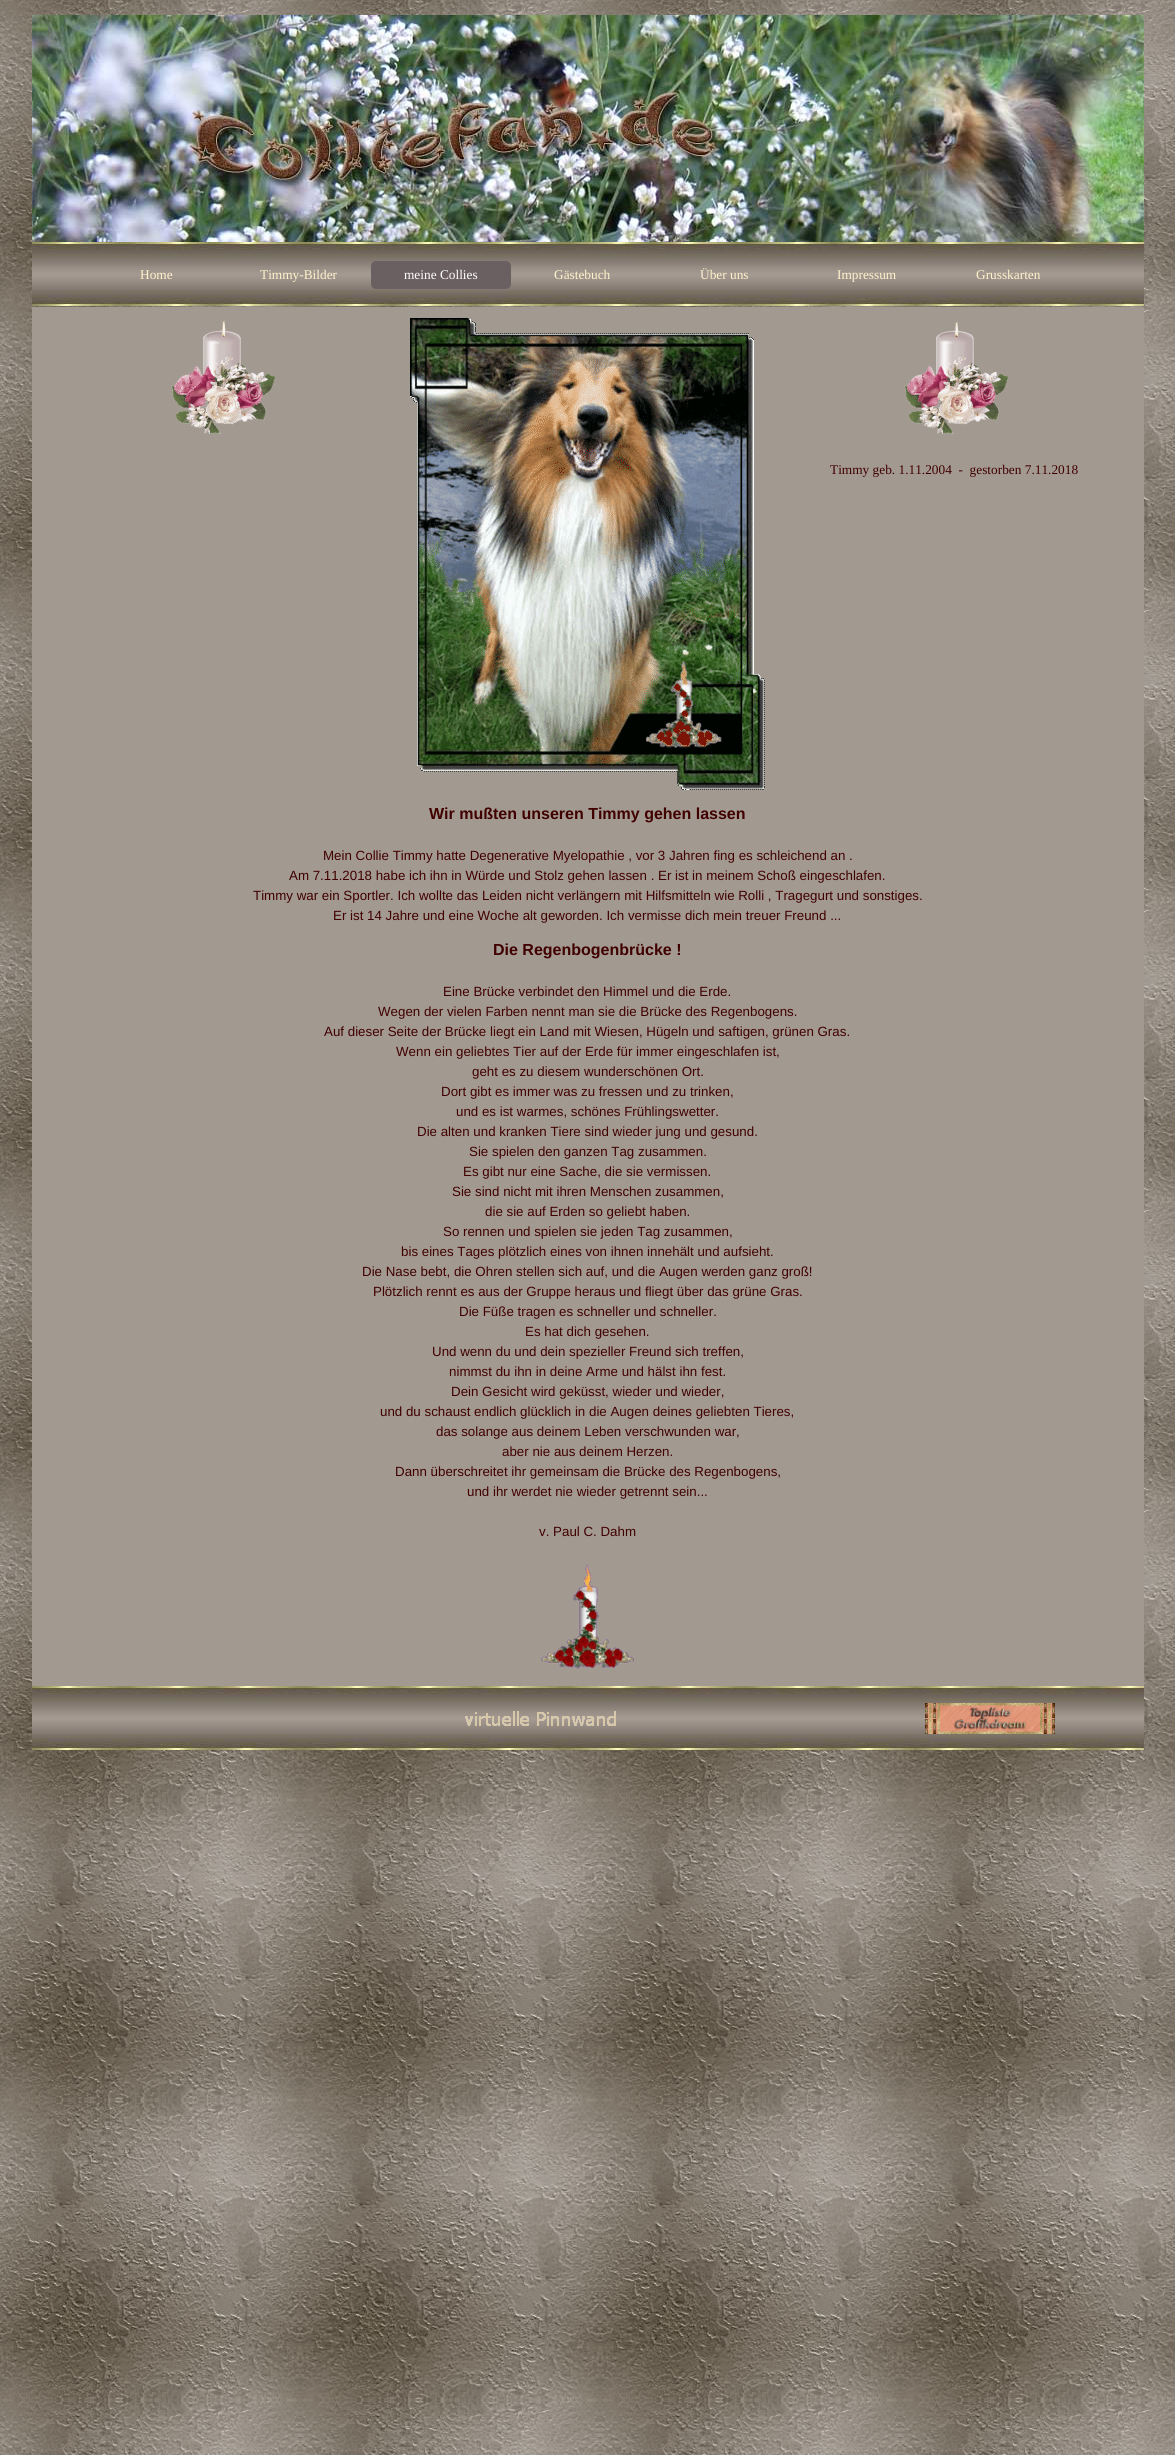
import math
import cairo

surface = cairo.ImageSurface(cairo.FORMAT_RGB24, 1175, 2455)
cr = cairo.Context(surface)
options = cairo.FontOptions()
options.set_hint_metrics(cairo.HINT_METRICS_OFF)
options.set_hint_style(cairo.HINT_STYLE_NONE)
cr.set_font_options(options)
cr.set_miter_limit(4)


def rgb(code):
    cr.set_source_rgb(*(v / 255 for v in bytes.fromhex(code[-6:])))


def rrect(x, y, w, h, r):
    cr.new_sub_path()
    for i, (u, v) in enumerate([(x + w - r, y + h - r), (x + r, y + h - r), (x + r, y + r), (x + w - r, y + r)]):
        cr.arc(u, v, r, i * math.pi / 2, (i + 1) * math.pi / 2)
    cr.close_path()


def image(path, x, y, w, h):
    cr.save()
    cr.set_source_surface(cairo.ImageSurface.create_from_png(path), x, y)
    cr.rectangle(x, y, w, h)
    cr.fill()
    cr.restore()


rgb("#ffffff")
cr.paint()
image("img/1.png", 0, 0, 1175, 2455)
image("img/2.png", 32, 15, 1112, 291)
rgb("#6b6061")
rrect(371, 261, 140, 28, 5)
cr.fill()
rgb("#a29990")
cr.rectangle(32, 307, 1112, 1379)
cr.fill()
image("img/3.png", 171, 320, 105, 114)
image("img/4.png", 410, 318, 355, 472)
image("img/5.png", 904, 321, 105, 113)
image("img/6.png", 541, 1564, 93, 105)
image("img/7.png", 32, 1686, 1112, 64)
image("img/8.png", 465, 1711, 151, 15)
image("img/9.png", 925, 1703, 130, 31)
cr.select_font_face("Liberation Serif")
cr.set_font_size(13.33)
rgb("#fff2cc")
cr.move_to(140, 279)
cr.show_text("Home")
cr.move_to(260, 279)
cr.show_text("Timmy-Bilder")
rgb("#ffffff")
cr.move_to(404, 279)
cr.show_text("meine Collies")
rgb("#fff2cc")
for x, y, s in [
    (554, 279, "Gästebuch"),
    (700, 279, "Über uns"),
    (837, 279, "Impressum"),
    (976, 279, "Grusskarten"),
]:
    cr.move_to(x, y)
    cr.show_text(s)
rgb("#400000")
cr.move_to(830, 474)
cr.show_text("Timmy geb. 1.11.2004  -  gestorben 7.11.2018")
cr.select_font_face("Liberation Sans", cairo.FONT_SLANT_NORMAL, cairo.FONT_WEIGHT_BOLD)
cr.set_font_size(16)
cr.move_to(429, 819)
cr.show_text("Wir mußten unseren Timmy gehen lassen")
cr.select_font_face("Liberation Sans")
cr.set_font_size(13.33)
for x, y, s in [
    (323, 860, "Mein Collie Timmy hatte Degenerative Myelopathie , vor 3 Jahren fing es schleichend an ."),
    (289, 880, "Am 7.11.2018 habe ich ihn in Würde und Stolz gehen lassen . Er ist in meinem Schoß eingeschlafen."),
    (253, 900, "Timmy war ein Sportler. Ich wollte das Leiden nicht verlängern mit Hilfsmitteln wie Rolli , Tragegurt und sonstiges."),
    (333, 920, "Er ist 14 Jahre und eine Woche alt geworden. Ich vermisse dich mein treuer Freund ..."),
]:
    cr.move_to(x, y)
    cr.show_text(s)
cr.select_font_face("Liberation Sans", cairo.FONT_SLANT_NORMAL, cairo.FONT_WEIGHT_BOLD)
cr.set_font_size(16)
cr.move_to(493, 955)
cr.show_text("Die Regenbogenbrücke !")
cr.select_font_face("Liberation Sans")
cr.set_font_size(13.33)
for x, y, s in [
    (443, 996, "Eine Brücke verbindet den Himmel und die Erde."),
    (378, 1016, "Wegen der vielen Farben nennt man sie die Brücke des Regenbogens."),
    (324, 1036, "Auf dieser Seite der Brücke liegt ein Land mit Wiesen, Hügeln und saftigen, grünen Gras."),
    (396, 1056, "Wenn ein geliebtes Tier auf der Erde für immer eingeschlafen ist,"),
    (472, 1076, "geht es zu diesem wunderschönen Ort."),
    (441, 1096, "Dort gibt es immer was zu fressen und zu trinken,"),
    (456, 1116, "und es ist warmes, schönes Frühlingswetter."),
    (417, 1136, "Die alten und kranken Tiere sind wieder jung und gesund."),
    (469, 1156, "Sie spielen den ganzen Tag zusammen."),
    (463, 1176, "Es gibt nur eine Sache, die sie vermissen."),
    (452, 1196, "Sie sind nicht mit ihren Menschen zusammen,"),
    (485, 1216, "die sie auf Erden so geliebt haben."),
    (443, 1236, "So rennen und spielen sie jeden Tag zusammen,"),
    (401, 1256, "bis eines Tages plötzlich eines von ihnen innehält und aufsieht."),
    (362, 1276, "Die Nase bebt, die Ohren stellen sich auf, und die Augen werden ganz groß!"),
    (373, 1296, "Plötzlich rennt es aus der Gruppe heraus und fliegt über das grüne Gras."),
    (459, 1316, "Die Füße tragen es schneller und schneller."),
    (525, 1336, "Es hat dich gesehen."),
    (432, 1356, "Und wenn du und dein spezieller Freund sich treffen,"),
    (449, 1376, "nimmst du ihn in deine Arme und hälst ihn fest."),
    (451, 1396, "Dein Gesicht wird geküsst, wieder und wieder,"),
    (380, 1416, "und du schaust endlich glücklich in die Augen deines geliebten Tieres,"),
    (436, 1436, "das solange aus deinem Leben verschwunden war,"),
    (502, 1456, "aber nie aus deinem Herzen."),
    (395, 1476, "Dann überschreitet ihr gemeinsam die Brücke des Regenbogens,"),
    (467, 1496, "und ihr werdet nie wieder getrennt sein..."),
    (539, 1536, "v. Paul C. Dahm"),
]:
    cr.move_to(x, y)
    cr.show_text(s)
surface.write_to_png("page.png")
